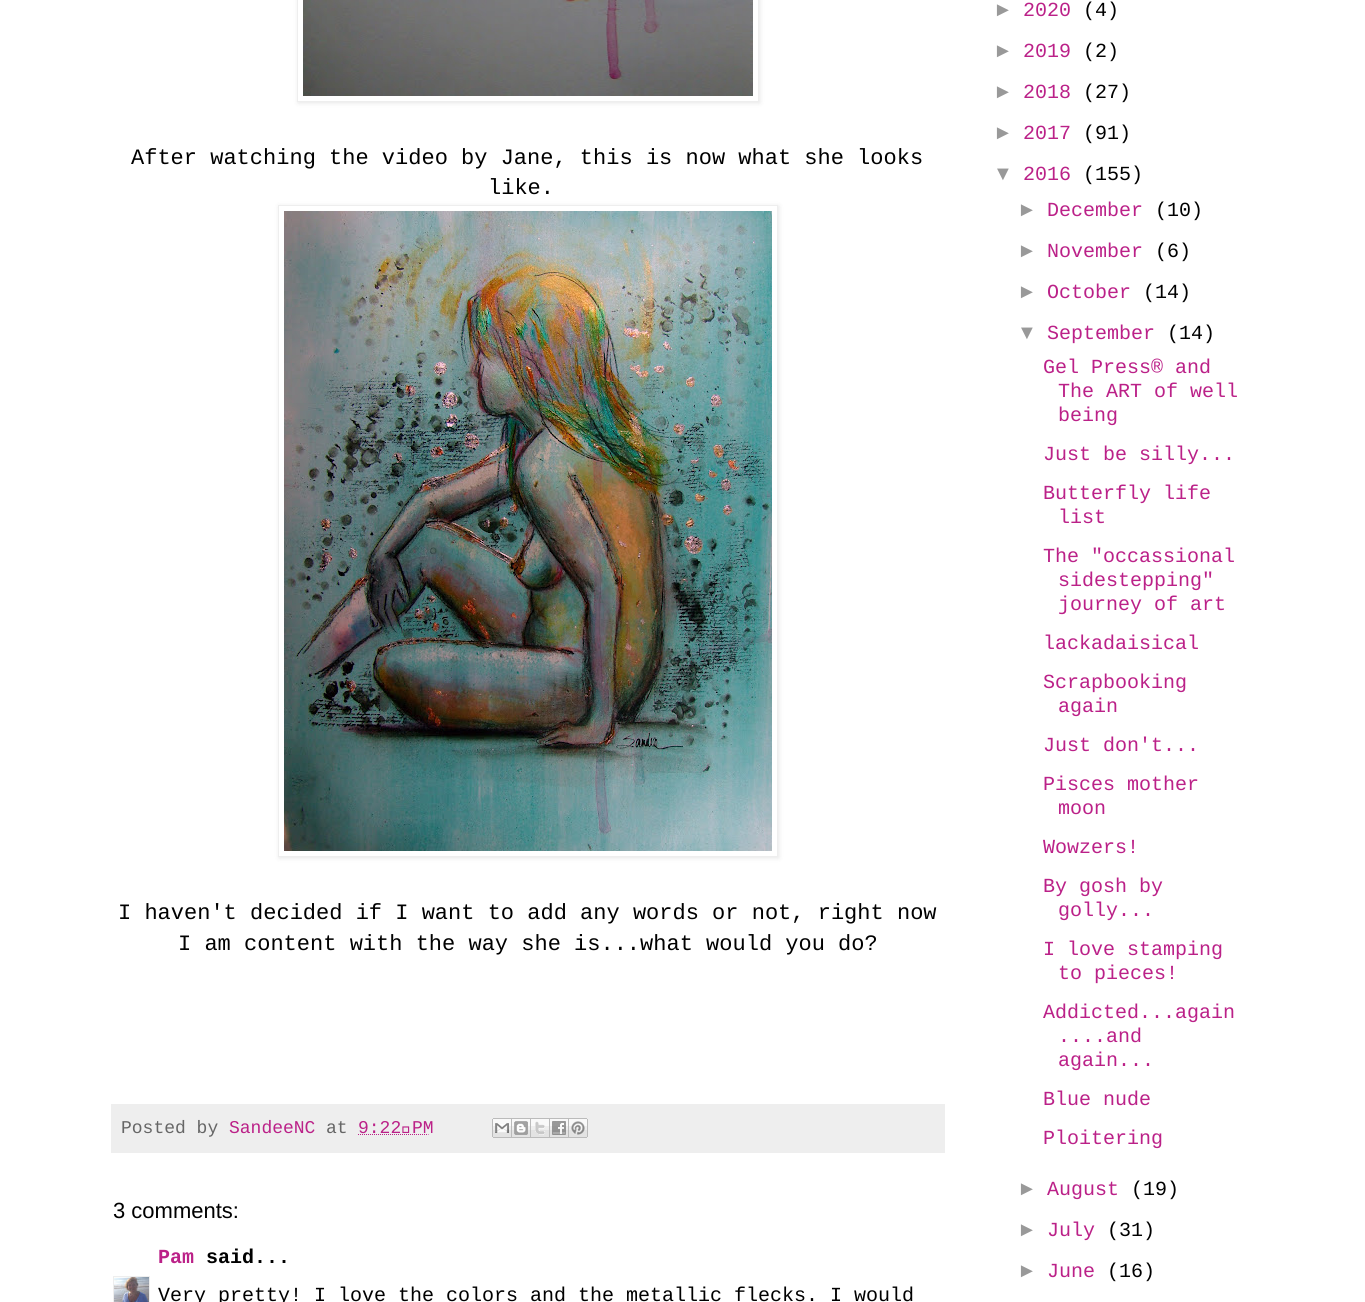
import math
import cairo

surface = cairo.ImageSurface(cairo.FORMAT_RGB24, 1365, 1302)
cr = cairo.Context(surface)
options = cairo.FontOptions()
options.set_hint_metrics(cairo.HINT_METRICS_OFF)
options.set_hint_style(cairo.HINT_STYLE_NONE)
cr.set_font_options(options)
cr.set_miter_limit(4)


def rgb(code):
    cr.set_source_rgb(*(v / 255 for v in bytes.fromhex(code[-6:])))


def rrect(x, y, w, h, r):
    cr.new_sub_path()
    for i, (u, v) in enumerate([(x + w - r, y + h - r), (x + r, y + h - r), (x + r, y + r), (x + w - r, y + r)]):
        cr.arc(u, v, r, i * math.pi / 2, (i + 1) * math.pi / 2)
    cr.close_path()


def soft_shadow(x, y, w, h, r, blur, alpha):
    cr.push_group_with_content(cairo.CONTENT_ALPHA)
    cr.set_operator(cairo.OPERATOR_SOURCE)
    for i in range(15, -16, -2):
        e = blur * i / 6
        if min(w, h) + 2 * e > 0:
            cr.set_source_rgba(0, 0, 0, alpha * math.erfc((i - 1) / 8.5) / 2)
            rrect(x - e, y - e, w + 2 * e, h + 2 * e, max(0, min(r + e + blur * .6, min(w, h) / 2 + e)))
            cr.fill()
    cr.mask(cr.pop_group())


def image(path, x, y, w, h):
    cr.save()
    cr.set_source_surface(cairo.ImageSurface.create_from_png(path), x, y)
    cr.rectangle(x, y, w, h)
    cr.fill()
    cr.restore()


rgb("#ffffff")
cr.paint()
cr.save()
cr.set_fill_rule(cairo.FILL_RULE_EVEN_ODD)
cr.new_path()
cr.move_to(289, 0)
cr.line_to(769, 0)
cr.line_to(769, 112)
cr.line_to(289, 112)
cr.close_path()
cr.move_to(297, -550)
cr.line_to(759, -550)
cr.line_to(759, 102)
cr.line_to(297, 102)
cr.close_path()
cr.clip()
rgb("#000000")
soft_shadow(298, -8, 462, 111, 0, 2.5, 0.1)
cr.restore()
cr.rectangle(297.5, -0.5, 461, 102)
rgb("#eeeeee")
cr.set_line_width(1)
cr.stroke()
image("img/1.png", 303, 0, 450, 96)
cr.save()
cr.set_fill_rule(cairo.FILL_RULE_EVEN_ODD)
cr.new_path()
cr.move_to(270, 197)
cr.line_to(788, 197)
cr.line_to(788, 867)
cr.line_to(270, 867)
cr.close_path()
cr.move_to(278, 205)
cr.line_to(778, 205)
cr.line_to(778, 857)
cr.line_to(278, 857)
cr.close_path()
cr.clip()
rgb("#000000")
soft_shadow(279, 206, 500, 652, 0, 2.5, 0.1)
cr.restore()
cr.rectangle(278.5, 205.5, 499, 651)
cr.stroke()
image("img/2.png", 284, 211, 488, 640)
cr.rectangle(111, 1104, 834, 49)
cr.fill()
cr.new_path()
cr.move_to(358, 1134.5)
cr.line_to(428.5, 1134.5)
rgb("#bb2188")
cr.set_dash([1, 1])
cr.stroke()
image("img/3.png", 492, 1118, 20, 20)
image("img/4.png", 512, 1118, 19, 20)
image("img/5.png", 531, 1118, 19, 20)
image("img/6.png", 550, 1118, 19, 20)
image("img/7.png", 569, 1118, 19, 20)
cr.rectangle(113.5, 1276.5, 36, 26)
rgb("#eeeeee")
cr.set_dash([])
cr.stroke()
image("img/8.png", 114, 1277, 35, 25)
cr.select_font_face("Liberation Mono")
cr.set_font_size(22)
rgb("#000000")
for x, y, s in [
    (131, 164, "After watching the video by Jane, this is now what she looks"),
    (488, 194, "like."),
    (118, 919, "I haven't decided if I want to add any words or not, right now"),
    (178, 950, "I am content with the way she is...what would you do?"),
]:
    cr.move_to(x, y)
    cr.show_text(s)
cr.set_font_size(18)
rgb("#666666")
cr.move_to(121, 1133)
cr.show_text("Posted by")
rgb("#bb2188")
cr.move_to(229, 1133)
cr.show_text("SandeeNC")
rgb("#666666")
cr.move_to(326, 1133)
cr.show_text("at")
rgb("#bb2188")
cr.move_to(358, 1133)
cr.show_text("9:22 PM")
cr.select_font_face("Liberation Sans")
cr.set_font_size(22)
rgb("#000000")
cr.move_to(113, 1218)
cr.show_text("3 comments:")
cr.select_font_face("Liberation Mono", cairo.FONT_SLANT_NORMAL, cairo.FONT_WEIGHT_BOLD)
cr.set_font_size(20)
rgb("#bb2188")
cr.move_to(158, 1263)
cr.show_text("Pam")
rgb("#000000")
cr.move_to(206, 1263)
cr.show_text("said...")
cr.select_font_face("Liberation Mono")
cr.move_to(158, 1301)
cr.show_text("Very pretty! I love the colors and the metallic flecks. I would")
cr.select_font_face("Liberation Sans")
rgb("#999999")
cr.move_to(993, 16)
cr.show_text("►")
cr.select_font_face("Liberation Mono")
rgb("#bb2188")
cr.move_to(1023, 16)
cr.show_text("2020")
rgb("#000000")
cr.move_to(1083, 16)
cr.show_text("(4)")
cr.select_font_face("Liberation Sans")
rgb("#999999")
cr.move_to(993, 57)
cr.show_text("►")
cr.select_font_face("Liberation Mono")
rgb("#bb2188")
cr.move_to(1023, 57)
cr.show_text("2019")
rgb("#000000")
cr.move_to(1083, 57)
cr.show_text("(2)")
cr.select_font_face("Liberation Sans")
rgb("#999999")
cr.move_to(993, 98)
cr.show_text("►")
cr.select_font_face("Liberation Mono")
rgb("#bb2188")
cr.move_to(1023, 98)
cr.show_text("2018")
rgb("#000000")
cr.move_to(1083, 98)
cr.show_text("(27)")
cr.select_font_face("Liberation Sans")
rgb("#999999")
cr.move_to(993, 139)
cr.show_text("►")
cr.select_font_face("Liberation Mono")
rgb("#bb2188")
cr.move_to(1023, 139)
cr.show_text("2017")
rgb("#000000")
cr.move_to(1083, 139)
cr.show_text("(91)")
cr.select_font_face("Liberation Sans")
rgb("#999999")
cr.move_to(993, 180)
cr.show_text("▼")
cr.select_font_face("Liberation Mono")
rgb("#bb2188")
cr.move_to(1023, 180)
cr.show_text("2016")
rgb("#000000")
cr.move_to(1083, 180)
cr.show_text("(155)")
cr.select_font_face("Liberation Sans")
rgb("#999999")
cr.move_to(1017, 216)
cr.show_text("►")
cr.select_font_face("Liberation Mono")
rgb("#bb2188")
cr.move_to(1047, 216)
cr.show_text("December")
rgb("#000000")
cr.move_to(1155, 216)
cr.show_text("(10)")
cr.select_font_face("Liberation Sans")
rgb("#999999")
cr.move_to(1017, 257)
cr.show_text("►")
cr.select_font_face("Liberation Mono")
rgb("#bb2188")
cr.move_to(1047, 257)
cr.show_text("November")
rgb("#000000")
cr.move_to(1155, 257)
cr.show_text("(6)")
cr.select_font_face("Liberation Sans")
rgb("#999999")
cr.move_to(1017, 298)
cr.show_text("►")
cr.select_font_face("Liberation Mono")
rgb("#bb2188")
cr.move_to(1047, 298)
cr.show_text("October")
rgb("#000000")
cr.move_to(1143, 298)
cr.show_text("(14)")
cr.select_font_face("Liberation Sans")
rgb("#999999")
cr.move_to(1017, 339)
cr.show_text("▼")
cr.select_font_face("Liberation Mono")
rgb("#bb2188")
cr.move_to(1047, 339)
cr.show_text("September")
rgb("#000000")
cr.move_to(1167, 339)
cr.show_text("(14)")
rgb("#bb2188")
for x, y, s in [
    (1043, 373, "Gel Press® and"),
    (1058, 397, "The ART of well"),
    (1058, 421, "being"),
    (1043, 460, "Just be silly..."),
    (1043, 499, "Butterfly life"),
    (1058, 523, "list"),
    (1043, 562, "The \"occassional"),
    (1058, 586, "sidestepping\""),
    (1058, 610, "journey of art"),
    (1043, 649, "lackadaisical"),
    (1043, 688, "Scrapbooking"),
    (1058, 712, "again"),
    (1043, 751, "Just don't..."),
    (1043, 790, "Pisces mother"),
    (1058, 814, "moon"),
    (1043, 853, "Wowzers!"),
    (1043, 892, "By gosh by"),
    (1058, 916, "golly..."),
    (1043, 955, "I love stamping"),
    (1058, 979, "to pieces!"),
    (1043, 1018, "Addicted...again"),
    (1058, 1042, "....and"),
    (1058, 1066, "again..."),
    (1043, 1105, "Blue nude"),
    (1043, 1144, "Ploitering"),
]:
    cr.move_to(x, y)
    cr.show_text(s)
cr.select_font_face("Liberation Sans")
rgb("#999999")
cr.move_to(1017, 1195)
cr.show_text("►")
cr.select_font_face("Liberation Mono")
rgb("#bb2188")
cr.move_to(1047, 1195)
cr.show_text("August")
rgb("#000000")
cr.move_to(1131, 1195)
cr.show_text("(19)")
cr.select_font_face("Liberation Sans")
rgb("#999999")
cr.move_to(1017, 1236)
cr.show_text("►")
cr.select_font_face("Liberation Mono")
rgb("#bb2188")
cr.move_to(1047, 1236)
cr.show_text("July")
rgb("#000000")
cr.move_to(1107, 1236)
cr.show_text("(31)")
cr.select_font_face("Liberation Sans")
rgb("#999999")
cr.move_to(1017, 1277)
cr.show_text("►")
cr.select_font_face("Liberation Mono")
rgb("#bb2188")
cr.move_to(1047, 1277)
cr.show_text("June")
rgb("#000000")
cr.move_to(1107, 1277)
cr.show_text("(16)")
surface.write_to_png("page.png")
